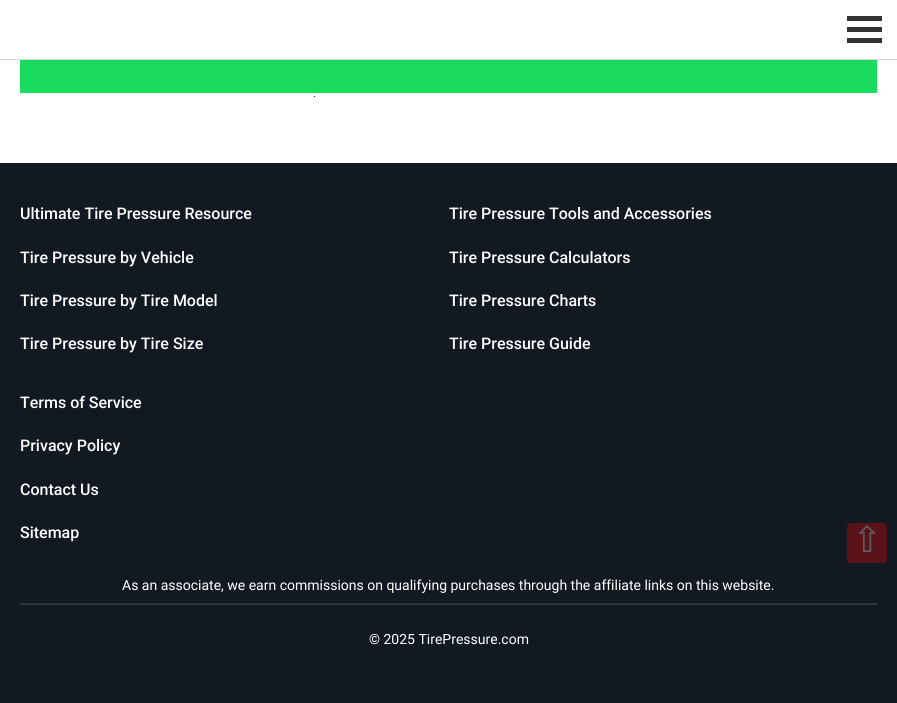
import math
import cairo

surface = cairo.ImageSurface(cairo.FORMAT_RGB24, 897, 703)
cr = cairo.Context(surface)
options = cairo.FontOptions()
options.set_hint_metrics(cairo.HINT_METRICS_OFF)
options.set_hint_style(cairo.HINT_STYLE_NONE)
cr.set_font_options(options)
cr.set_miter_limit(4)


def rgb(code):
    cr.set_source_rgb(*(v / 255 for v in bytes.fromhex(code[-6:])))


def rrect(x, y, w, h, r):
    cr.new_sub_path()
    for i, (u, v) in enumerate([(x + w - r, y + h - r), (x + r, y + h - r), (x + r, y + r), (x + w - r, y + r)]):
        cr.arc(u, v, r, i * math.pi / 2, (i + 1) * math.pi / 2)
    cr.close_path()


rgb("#ffffff")
cr.paint()
for x, y, w, h, color in [
    (0, 59, 897, 1, "#dadada"),
    (847, 16, 35, 5, "#333333"),
    (847, 27, 35, 5, "#333333"),
    (847, 38, 35, 5, "#333333"),
    (20, 60, 857, 33, "#1adb5e"),
    (0, 163, 897, 540, "#121921"),
]:
    rgb(color)
    cr.rectangle(x, y, w, h)
    cr.fill()
rgb("#292f36")
cr.new_path()
cr.move_to(20, 603)
cr.line_to(877, 603)
cr.line_to(876, 604)
cr.line_to(21, 604)
cr.close_path()
cr.fill()
cr.set_source_rgba(1, 1, 1, 0.15)
cr.new_path()
cr.move_to(877, 603)
cr.line_to(877, 605)
cr.line_to(876, 604)
cr.close_path()
cr.fill()
cr.new_path()
cr.move_to(877, 605)
cr.line_to(20, 605)
cr.line_to(21, 604)
cr.line_to(876, 604)
cr.close_path()
cr.fill()
cr.set_source_rgba(0.667, 0.667, 0.667, 0.15)
cr.new_path()
cr.move_to(20, 605)
cr.line_to(20, 603)
cr.line_to(21, 604)
cr.close_path()
cr.fill()
rgb("#591217")
rrect(847, 523, 40, 40, 4)
cr.fill()
cr.select_font_face("Roboto")
cr.set_font_size(12)
rgb("#212529")
cr.move_to(313, 97)
cr.show_text(".")
cr.select_font_face("Roboto Medium")
cr.set_font_size(16)
rgb("#ffffff")
for x, y, s in [
    (20, 219, "Ultimate Tire Pressure Resource"),
    (20, 263, "Tire Pressure by Vehicle"),
    (20, 306, "Tire Pressure by Tire Model"),
    (20, 349, "Tire Pressure by Tire Size"),
    (449, 219, "Tire Pressure Tools and Accessories"),
    (449, 263, "Tire Pressure Calculators"),
    (449, 306, "Tire Pressure Charts"),
    (449, 349, "Tire Pressure Guide"),
    (20, 408, "Terms of Service"),
    (20, 451, "Privacy Policy"),
    (20, 495, "Contact Us"),
    (20, 538, "Sitemap"),
]:
    cr.move_to(x, y)
    cr.show_text(s)
cr.select_font_face("Roboto")
cr.set_font_size(14)
cr.move_to(122, 590)
cr.show_text("As an associate, we earn commissions on qualifying purchases through the affiliate links on this website.")
cr.move_to(369, 644)
cr.show_text("© 2025 TirePressure.com")
cr.select_font_face("DejaVu Sans")
cr.set_font_size(36)
rgb("#595e64")
cr.move_to(852, 552)
cr.show_text("⇧")
surface.write_to_png("page.png")
